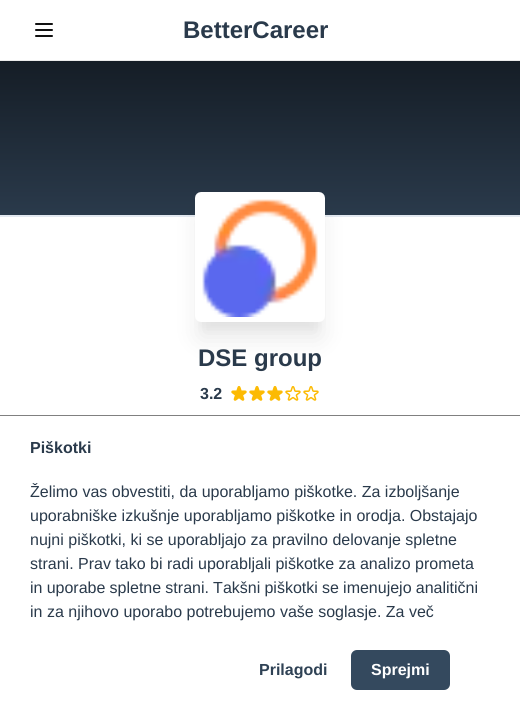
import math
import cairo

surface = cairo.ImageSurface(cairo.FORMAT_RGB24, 520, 710)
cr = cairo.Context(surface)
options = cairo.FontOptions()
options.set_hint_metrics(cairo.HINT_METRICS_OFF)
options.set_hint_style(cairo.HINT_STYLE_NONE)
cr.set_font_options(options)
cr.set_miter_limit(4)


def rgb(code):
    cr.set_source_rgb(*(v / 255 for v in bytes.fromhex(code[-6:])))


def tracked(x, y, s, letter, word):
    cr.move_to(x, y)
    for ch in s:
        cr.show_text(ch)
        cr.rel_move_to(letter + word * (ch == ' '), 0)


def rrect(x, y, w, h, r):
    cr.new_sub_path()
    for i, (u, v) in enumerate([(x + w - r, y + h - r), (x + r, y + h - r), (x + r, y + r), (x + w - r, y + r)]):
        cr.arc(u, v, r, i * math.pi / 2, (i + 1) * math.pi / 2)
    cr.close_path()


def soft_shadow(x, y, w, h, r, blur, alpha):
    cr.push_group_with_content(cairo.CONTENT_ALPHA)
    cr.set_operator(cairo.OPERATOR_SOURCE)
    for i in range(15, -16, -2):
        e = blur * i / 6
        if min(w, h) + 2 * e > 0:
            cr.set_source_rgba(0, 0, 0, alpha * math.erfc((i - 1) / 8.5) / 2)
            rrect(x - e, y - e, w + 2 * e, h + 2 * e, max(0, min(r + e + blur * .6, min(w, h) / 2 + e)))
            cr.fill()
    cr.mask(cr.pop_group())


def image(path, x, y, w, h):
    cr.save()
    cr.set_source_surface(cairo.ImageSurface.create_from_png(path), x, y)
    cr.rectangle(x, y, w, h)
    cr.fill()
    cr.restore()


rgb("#ffffff")
cr.paint()
rgb("#ebebeb")
cr.rectangle(0, 60, 520, 1)
cr.fill()
cr.new_path()
cr.move_to(36, 24)
cr.line_to(52, 24)
cr.move_to(36, 30)
cr.line_to(52, 30)
cr.move_to(36, 36)
cr.line_to(52, 36)
rgb("#111111")
cr.set_line_cap(cairo.LINE_CAP_ROUND)
cr.set_line_join(cairo.LINE_JOIN_ROUND)
cr.stroke()
gradient = cairo.LinearGradient(260, 61, 260, 215)
gradient.add_color_stop_rgba(0, 0.082, 0.114, 0.149, 1)
gradient.add_color_stop_rgba(1, 0.165, 0.227, 0.294, 1)
cr.set_source(gradient)
cr.rectangle(0, 61, 520, 154)
cr.fill()
rgb("#e2e8f0")
cr.rectangle(0, 215, 520, 2)
cr.fill()
rgb("#000000")
soft_shadow(200, 207, 120, 120, 1, 5, 0.04)
soft_shadow(200, 217, 120, 120, 1, 12.5, 0.1)
rgb("#ffffff")
rrect(197.5, 194.5, 125, 125, 3.5)
cr.fill_preserve()
cr.set_line_width(5)
cr.set_line_cap(cairo.LINE_CAP_BUTT)
cr.set_line_join(cairo.LINE_JOIN_MITER)
cr.stroke()
image("img/1.png", 202, 199, 116, 118)
image("img/2.png", 231, 386, 16, 15)
image("img/2.png", 249, 386, 16, 15)
image("img/2.png", 267, 386, 16, 15)
image("img/3.png", 285, 386, 16, 15)
image("img/3.png", 303, 386, 16, 15)
rgb("#808080")
cr.rectangle(0, 415, 520, 1)
cr.fill()
rgb("#34495e")
rrect(351, 650, 99, 40, 6)
cr.fill()
cr.select_font_face("Liberation Sans", cairo.FONT_SLANT_NORMAL, cairo.FONT_WEIGHT_BOLD)
cr.set_font_size(24)
rgb("#2a3a4b")
cr.move_to(183, 38)
cr.show_text("BetterCareer")
cr.move_to(198, 366)
cr.show_text("DSE group")
cr.set_font_size(16)
cr.move_to(200, 399)
cr.show_text("3.2")
cr.move_to(30, 453)
cr.show_text("Piškotki")
cr.select_font_face("Liberation Sans")
for x, y, s in [
    (30, 497, "Želimo vas obvestiti, da uporabljamo piškotke. Za izboljšanje"),
    (30, 521, "uporabniške izkušnje uporabljamo piškotke in orodja. Obstajajo"),
    (30, 545, "nujni piškotki, ki se uporabljajo za pravilno delovanje spletne"),
    (30, 569, "strani. Prav tako bi radi uporabljali piškotke za analizo prometa"),
]:
    cr.move_to(x, y)
    cr.show_text(s)
tracked(30, 593, "in uporabe spletne strani. Takšni piškotki se imenujejo analitični", 0, -0.25)
cr.move_to(30, 617)
cr.show_text("in za njihovo uporabo potrebujemo vaše soglasje. Za več")
cr.select_font_face("Liberation Sans", cairo.FONT_SLANT_NORMAL, cairo.FONT_WEIGHT_BOLD)
rgb("#2f4255")
cr.move_to(259, 675)
cr.show_text("Prilagodi")
rgb("#ffffff")
cr.move_to(371, 675)
cr.show_text("Sprejmi")
surface.write_to_png("page.png")
